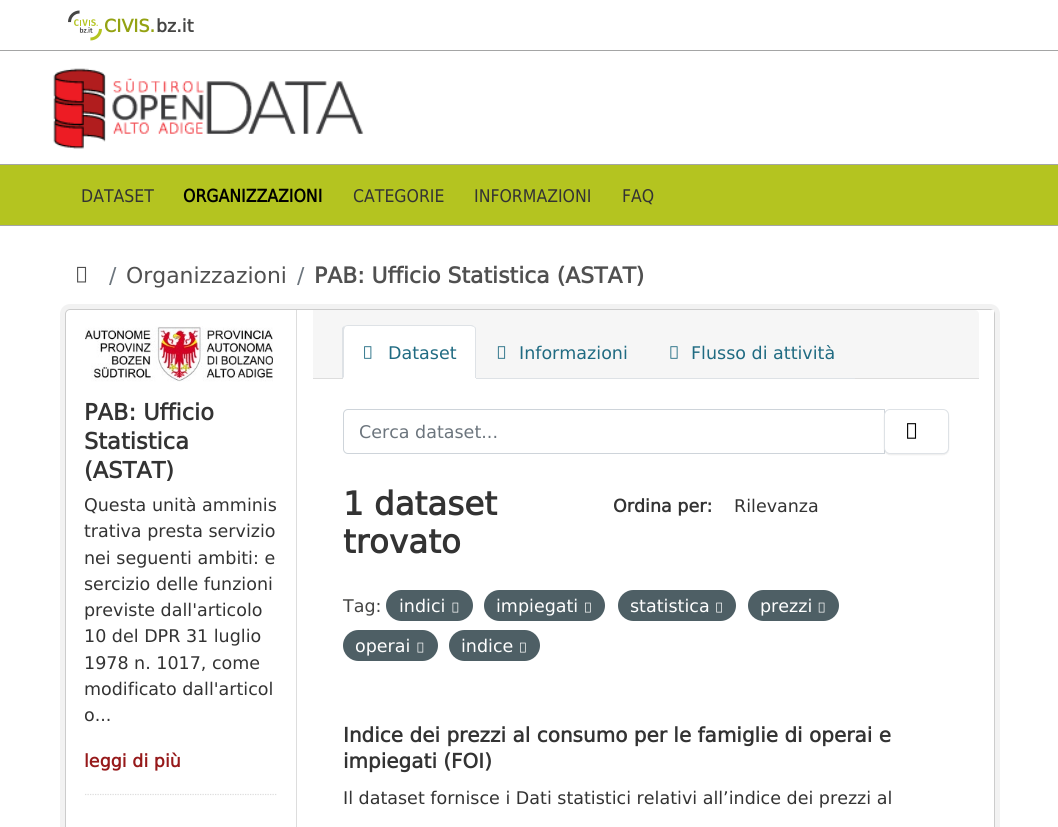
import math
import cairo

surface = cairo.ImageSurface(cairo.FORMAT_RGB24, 1058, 827)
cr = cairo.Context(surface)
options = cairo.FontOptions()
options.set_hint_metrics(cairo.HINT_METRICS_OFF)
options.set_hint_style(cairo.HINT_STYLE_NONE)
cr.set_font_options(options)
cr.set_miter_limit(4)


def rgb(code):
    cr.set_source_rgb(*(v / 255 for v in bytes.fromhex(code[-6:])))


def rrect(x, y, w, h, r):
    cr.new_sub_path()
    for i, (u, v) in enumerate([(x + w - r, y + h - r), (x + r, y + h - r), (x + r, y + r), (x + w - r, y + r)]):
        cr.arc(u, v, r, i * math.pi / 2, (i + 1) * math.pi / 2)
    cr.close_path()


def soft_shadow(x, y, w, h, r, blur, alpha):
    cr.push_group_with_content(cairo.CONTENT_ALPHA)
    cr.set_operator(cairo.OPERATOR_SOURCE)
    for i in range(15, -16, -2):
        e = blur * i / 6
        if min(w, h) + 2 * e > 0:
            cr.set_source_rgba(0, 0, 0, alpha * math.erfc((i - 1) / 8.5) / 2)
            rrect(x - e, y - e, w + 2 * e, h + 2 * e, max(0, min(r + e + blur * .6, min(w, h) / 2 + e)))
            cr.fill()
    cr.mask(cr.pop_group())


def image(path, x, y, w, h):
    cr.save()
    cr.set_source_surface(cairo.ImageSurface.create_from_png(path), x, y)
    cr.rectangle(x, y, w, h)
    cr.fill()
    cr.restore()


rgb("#ffffff")
cr.paint()
rgb("#a4a5a5")
cr.rectangle(0, 50, 1058, 1)
cr.fill()
image("img/1.png", 68, 10, 34, 31)
image("img/2.png", 53, 68, 311, 81)
for x, y, w, h, color in [
    (0, 165, 1058, 60, "#b4c420"),
    (0, 164, 1058, 1, "#a4a5a5"),
    (0, 225, 1058, 1, "#a4a5a5"),
]:
    rgb(color)
    cr.rectangle(x, y, w, h)
    cr.fill()
image("img/3.png", 77, 266, 10, 17)
rrect(62.5, 306.5, 935, 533, 7.5)
rgb("#f2f2f2")
cr.set_line_width(5)
cr.stroke()
rgb("#ffffff")
rrect(65.5, 309.5, 929, 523, 4.5)
cr.fill_preserve()
rgb("#cccccc")
cr.set_line_width(1)
cr.stroke()
image("img/4.png", 85, 326, 188, 56)
cr.new_path()
cr.move_to(85, 794.5)
cr.line_to(277.5, 794.5)
rgb("#dddddd")
cr.set_line_width(1.2)
cr.set_dash([1.25, 1.25])
cr.stroke()
cr.rectangle(296, 310, 1, 517)
cr.fill()
rgb("#ffffff")
cr.rectangle(991, 310, 3, 4)
cr.fill()
rgb("#f6f6f6")
cr.new_path()
cr.move_to(313, 310)
cr.line_to(975, 310)
cr.curve_to(977, 310, 979, 312, 979, 314)
cr.line_to(979, 379)
cr.line_to(313, 379)
cr.close_path()
cr.fill()
rgb("#dddddd")
cr.rectangle(313, 378, 666, 1)
cr.fill()
rgb("#dee2e6")
cr.rectangle(476, 378, 379, 1)
cr.fill()
rgb("#ffffff")
cr.new_path()
cr.move_to(348, 325)
cr.line_to(471, 325)
cr.curve_to(474, 325, 476, 327, 476, 330)
cr.line_to(476, 379)
cr.line_to(343, 379)
cr.line_to(343, 330)
cr.curve_to(343, 327, 345, 325, 348, 325)
cr.close_path()
cr.fill()
rgb("#dee2e6")
cr.new_path()
cr.move_to(348, 325)
cr.curve_to(346, 325, 345, 326, 344, 326)
cr.line_to(345, 327)
cr.curve_to(346, 326, 347, 326, 348, 326)
cr.line_to(471, 326)
cr.line_to(474, 327)
cr.line_to(475, 327)
cr.curve_to(474, 326, 473, 325, 471, 325)
cr.close_path()
cr.fill()
cr.new_path()
cr.move_to(475, 327)
cr.curve_to(476, 327, 476, 329, 476, 330)
cr.line_to(476, 378)
cr.line_to(475, 378)
cr.line_to(475, 330)
cr.curve_to(475, 329, 475, 328, 474, 327)
cr.close_path()
cr.fill()
cr.new_path()
cr.move_to(342, 379)
cr.line_to(342, 328)
cr.line_to(344, 326)
cr.line_to(345, 327)
cr.line_to(344, 330)
cr.line_to(344, 377)
cr.close_path()
cr.fill()
image("img/5.png", 364, 346, 8, 13)
image("img/6.png", 497, 346, 9, 13)
image("img/7.png", 670, 346, 8, 13)
cr.new_path()
cr.move_to(348, 409.5)
cr.line_to(884.5, 409.5)
cr.line_to(884.5, 453.5)
cr.line_to(348, 453.5)
cr.curve_to(345.5, 453.5, 343.5, 451.5, 343.5, 449)
cr.line_to(343.5, 414)
cr.curve_to(343.5, 411.5, 345.5, 409.5, 348, 409.5)
cr.close_path()
rgb("#ced4da")
cr.set_line_width(1)
cr.set_dash([])
cr.stroke()
rgb("#000000")
soft_shadow(884, 410, 65, 45, 6, 0.5, 0.07)
rgb("#ffffff")
rrect(884.5, 409.5, 64, 44, 5.5)
cr.fill_preserve()
rgb("#dee2e6")
cr.stroke()
image("img/8.png", 907, 423, 10, 16)
rgb("#4e5f65")
rrect(386, 590, 87, 31, 15.5)
cr.fill()
image("img/9.png", 452, 602, 7, 11)
rrect(484, 590, 121, 31, 15.5)
cr.fill()
image("img/10.png", 585, 602, 6, 11)
rrect(618, 590, 118, 31, 15.5)
cr.fill()
image("img/11.png", 716, 602, 6, 11)
rrect(748, 590, 91, 31, 15.5)
cr.fill()
image("img/12.png", 818, 602, 7, 11)
rrect(343, 630, 95, 31, 15.5)
cr.fill()
image("img/9.png", 417, 642, 7, 11)
rrect(449, 630, 91, 31, 15.5)
cr.fill()
image("img/10.png", 520, 642, 6, 11)
cr.select_font_face("DejaVu Sans", cairo.FONT_SLANT_NORMAL, cairo.FONT_WEIGHT_BOLD)
cr.set_font_size(17.5)
rgb("#94a212")
cr.move_to(104, 32)
cr.show_text("CIVIS.")
rgb("#454544")
cr.move_to(156, 32)
cr.show_text("bz.it")
cr.select_font_face("DejaVu Sans")
rgb("#333333")
cr.move_to(81, 202)
cr.show_text("DATASET")
cr.select_font_face("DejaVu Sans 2", cairo.FONT_SLANT_NORMAL, cairo.FONT_WEIGHT_BOLD)
rgb("#000000")
cr.move_to(183, 202)
cr.show_text("ORGANIZZAZIONI")
cr.select_font_face("DejaVu Sans")
rgb("#333333")
for x, y, s in [
    (353, 202, "CATEGORIE"),
    (474, 202, "INFORMAZIONI"),
    (622, 202, "FAQ"),
]:
    cr.move_to(x, y)
    cr.show_text(s)
cr.select_font_face("DejaVu Sans 2")
cr.set_font_size(21.9)
rgb("#6c757d")
cr.move_to(109, 283)
cr.show_text("/")
rgb("#505050")
cr.move_to(126, 283)
cr.show_text("Organizzazioni")
rgb("#6c757d")
cr.move_to(297, 283)
cr.show_text("/")
cr.select_font_face("DejaVu Sans", cairo.FONT_SLANT_NORMAL, cairo.FONT_WEIGHT_BOLD)
rgb("#505050")
cr.move_to(314, 283)
cr.show_text("PAB: Ufficio Statistica (ASTAT)")
cr.set_font_size(22.5)
rgb("#333333")
for x, y, s in [
    (84, 420, "PAB: Ufficio"),
    (84, 449, "Statistica"),
    (84, 478, "(ASTAT)"),
]:
    cr.move_to(x, y)
    cr.show_text(s)
cr.select_font_face("DejaVu Sans 2")
cr.set_font_size(17.5)
for x, y, s in [
    (84, 511, "Questa unità amminis"),
    (84, 537, "trativa presta servizio"),
    (84, 564, "nei seguenti ambiti: e"),
    (84, 590, "sercizio delle funzioni"),
    (84, 616, "previste dall'articolo"),
    (84, 642, "10 del DPR 31 luglio"),
    (84, 669, "1978 n. 1017, come"),
    (84, 695, "modificato dall'articol"),
    (84, 721, "o..."),
]:
    cr.move_to(x, y)
    cr.show_text(s)
cr.select_font_face("DejaVu Sans", cairo.FONT_SLANT_NORMAL, cairo.FONT_WEIGHT_BOLD)
rgb("#96191a")
cr.move_to(84, 767)
cr.show_text("leggi di più")
cr.select_font_face("DejaVu Sans 2")
rgb("#206b82")
for x, y, s in [
    (388, 359, "Dataset"),
    (519, 359, "Informazioni"),
    (691, 359, "Flusso di attività"),
]:
    cr.move_to(x, y)
    cr.show_text(s)
rgb("#6c757d")
cr.move_to(359, 438)
cr.show_text("Cerca dataset...")
cr.select_font_face("DejaVu Sans", cairo.FONT_SLANT_NORMAL, cairo.FONT_WEIGHT_BOLD)
cr.set_font_size(32.5)
rgb("#333333")
cr.move_to(343, 515)
cr.show_text("1 dataset")
cr.move_to(343, 553)
cr.show_text("trovato")
cr.set_font_size(17.5)
cr.move_to(613, 512)
cr.show_text("Ordina per:")
cr.select_font_face("DejaVu Sans 2")
cr.move_to(734, 512)
cr.show_text("Rilevanza")
rgb("#454544")
cr.move_to(343, 612)
cr.show_text("Tag:")
rgb("#ffffff")
for x, y, s in [
    (399, 612, "indici"),
    (496, 612, "impiegati"),
    (630, 612, "statistica"),
    (760, 612, "prezzi"),
    (355, 652, "operai"),
    (461, 652, "indice"),
]:
    cr.move_to(x, y)
    cr.show_text(s)
cr.select_font_face("DejaVu Sans", cairo.FONT_SLANT_NORMAL, cairo.FONT_WEIGHT_BOLD)
cr.set_font_size(20)
rgb("#333333")
cr.move_to(343, 742)
cr.show_text("Indice dei prezzi al consumo per le famiglie di operai e")
cr.move_to(343, 768)
cr.show_text("impiegati (FOI)")
cr.select_font_face("DejaVu Sans 2")
cr.set_font_size(17.5)
cr.move_to(343, 804)
cr.show_text("Il dataset fornisce i Dati statistici relativi all’indice dei prezzi al")
surface.write_to_png("page.png")
